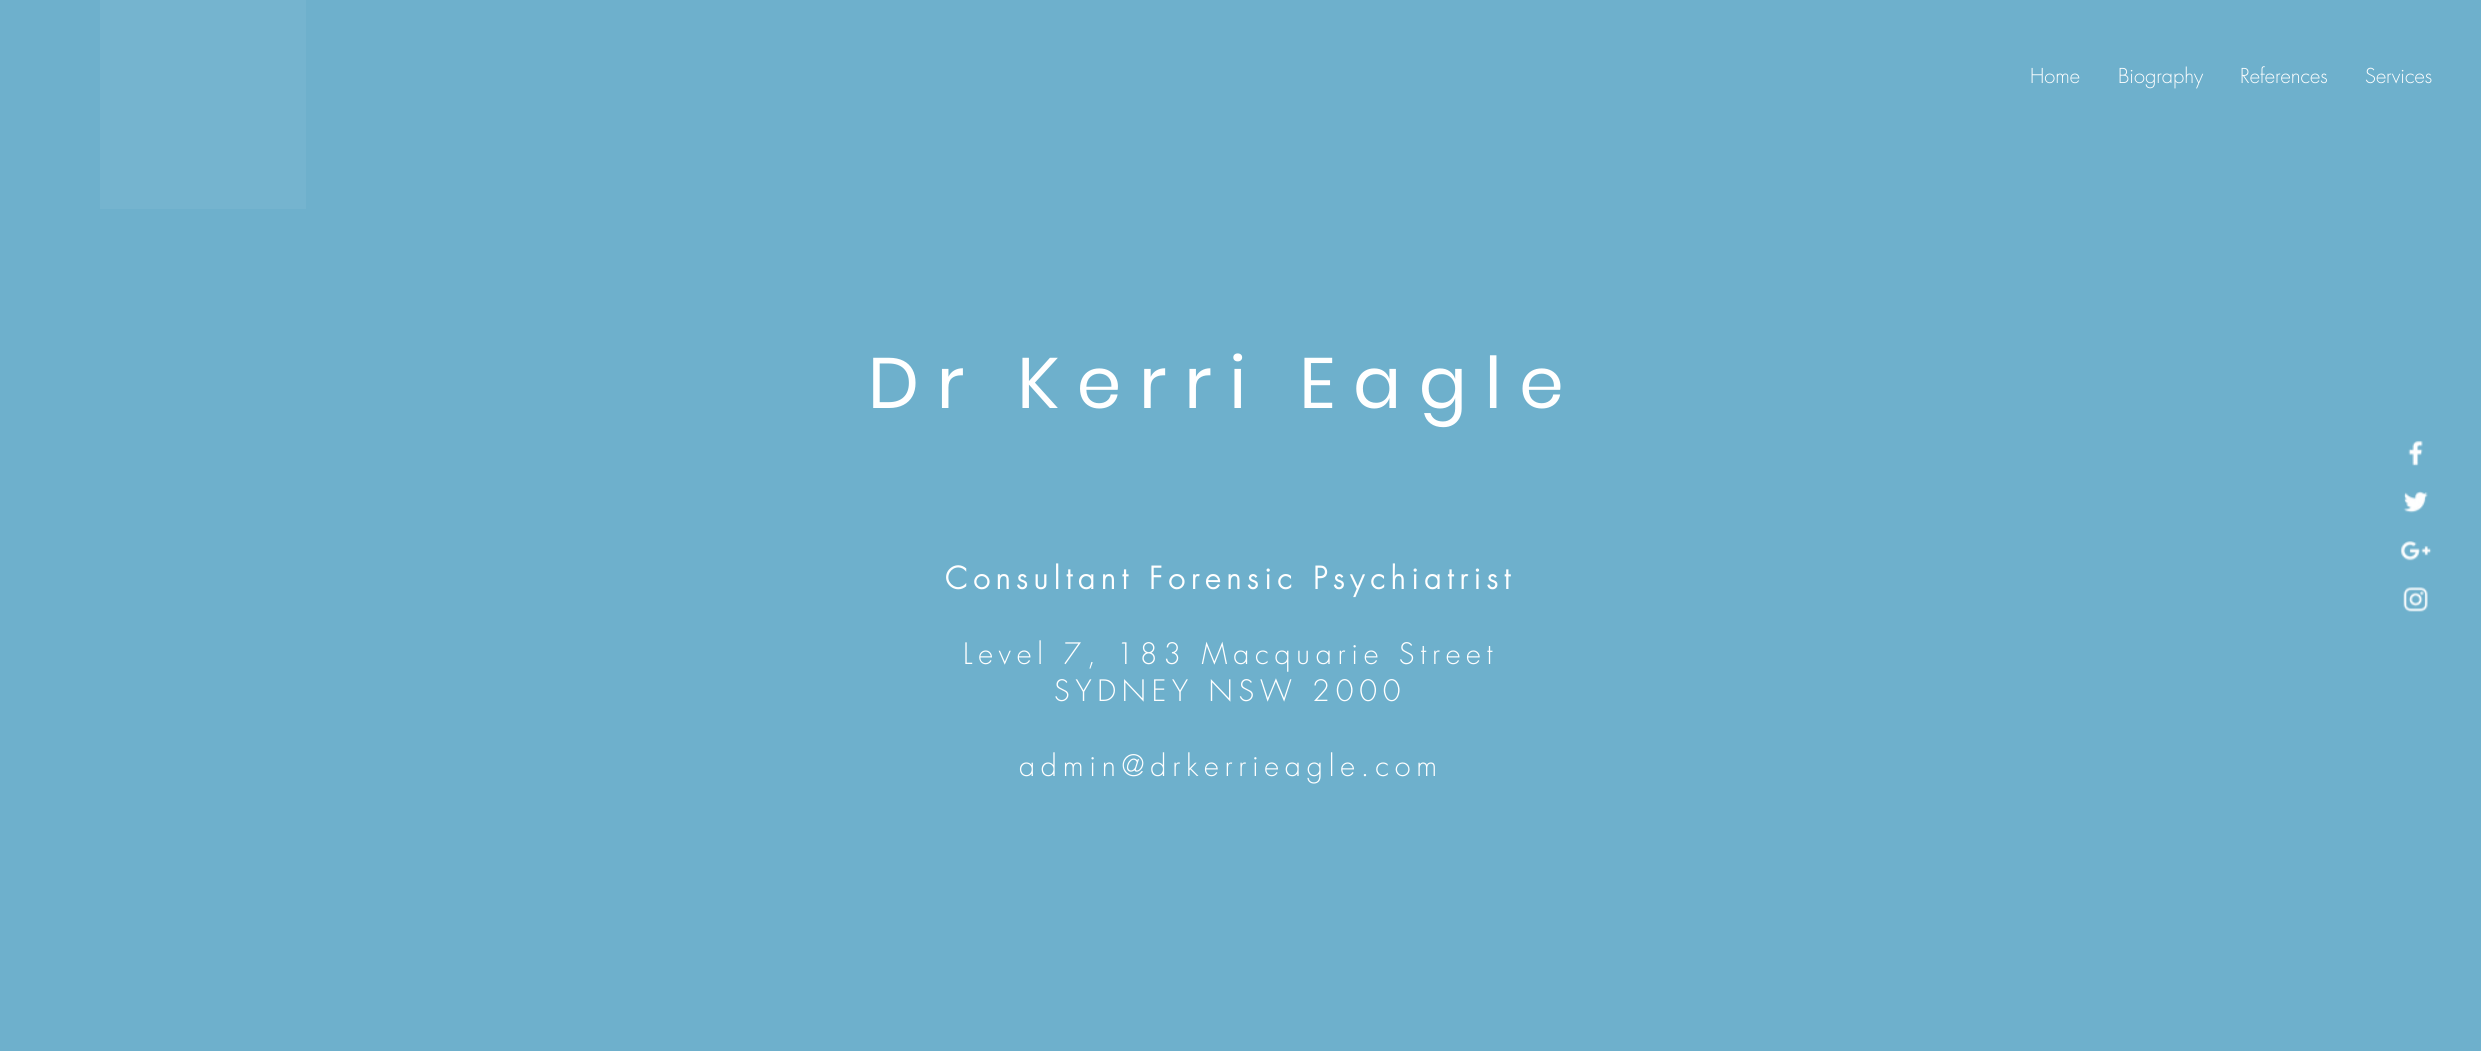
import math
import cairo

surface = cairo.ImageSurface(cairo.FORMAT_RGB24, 2481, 1051)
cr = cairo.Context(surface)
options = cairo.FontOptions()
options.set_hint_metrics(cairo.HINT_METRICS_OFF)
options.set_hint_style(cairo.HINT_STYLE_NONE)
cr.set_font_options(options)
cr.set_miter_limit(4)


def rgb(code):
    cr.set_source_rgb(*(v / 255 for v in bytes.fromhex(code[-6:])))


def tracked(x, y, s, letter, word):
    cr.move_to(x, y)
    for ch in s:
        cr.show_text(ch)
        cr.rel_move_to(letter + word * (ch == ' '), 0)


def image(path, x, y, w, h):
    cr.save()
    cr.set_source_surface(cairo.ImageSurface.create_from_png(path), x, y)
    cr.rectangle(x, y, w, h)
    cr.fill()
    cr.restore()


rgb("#6eb0cc")
cr.paint()
rgb("#75b4cf")
cr.rectangle(100, 0, 206, 209)
cr.fill()
image("img/1.png", 2408, 440, 15, 26)
image("img/2.png", 2403, 491, 25, 22)
image("img/3.png", 2400, 541, 32, 20)
image("img/4.png", 2403, 587, 25, 25)
cr.select_font_face("futura Light")
cr.set_font_size(20)
rgb("#ffffff")
for x, y, s in [
    (2030, 83, "Home"),
    (2118, 83, "Biography"),
    (2240, 83, "References"),
    (2365, 83, "Services"),
]:
    cr.move_to(x, y)
    cr.show_text(s)
cr.select_font_face("Poppins")
cr.set_font_size(71.25)
tracked(868, 408, "Dr Kerri Eagle", 17.75, 0)
cr.select_font_face("futura", cairo.FONT_SLANT_NORMAL, cairo.FONT_WEIGHT_BOLD)
cr.set_font_size(30)
tracked(945, 589, "Consultant Forensic Psychiatrist", 6, 0)
cr.select_font_face("futura Light")
cr.set_font_size(28.75)
for x, y, s in [
    (963, 664, "Level 7, 183 Macquarie Street"),
    (1054, 701, "SYDNEY NSW 2000"),
    (1019, 776, "admin@drkerrieagle.com"),
]:
    tracked(x, y, s, 5.75, 0)
surface.write_to_png("page.png")
